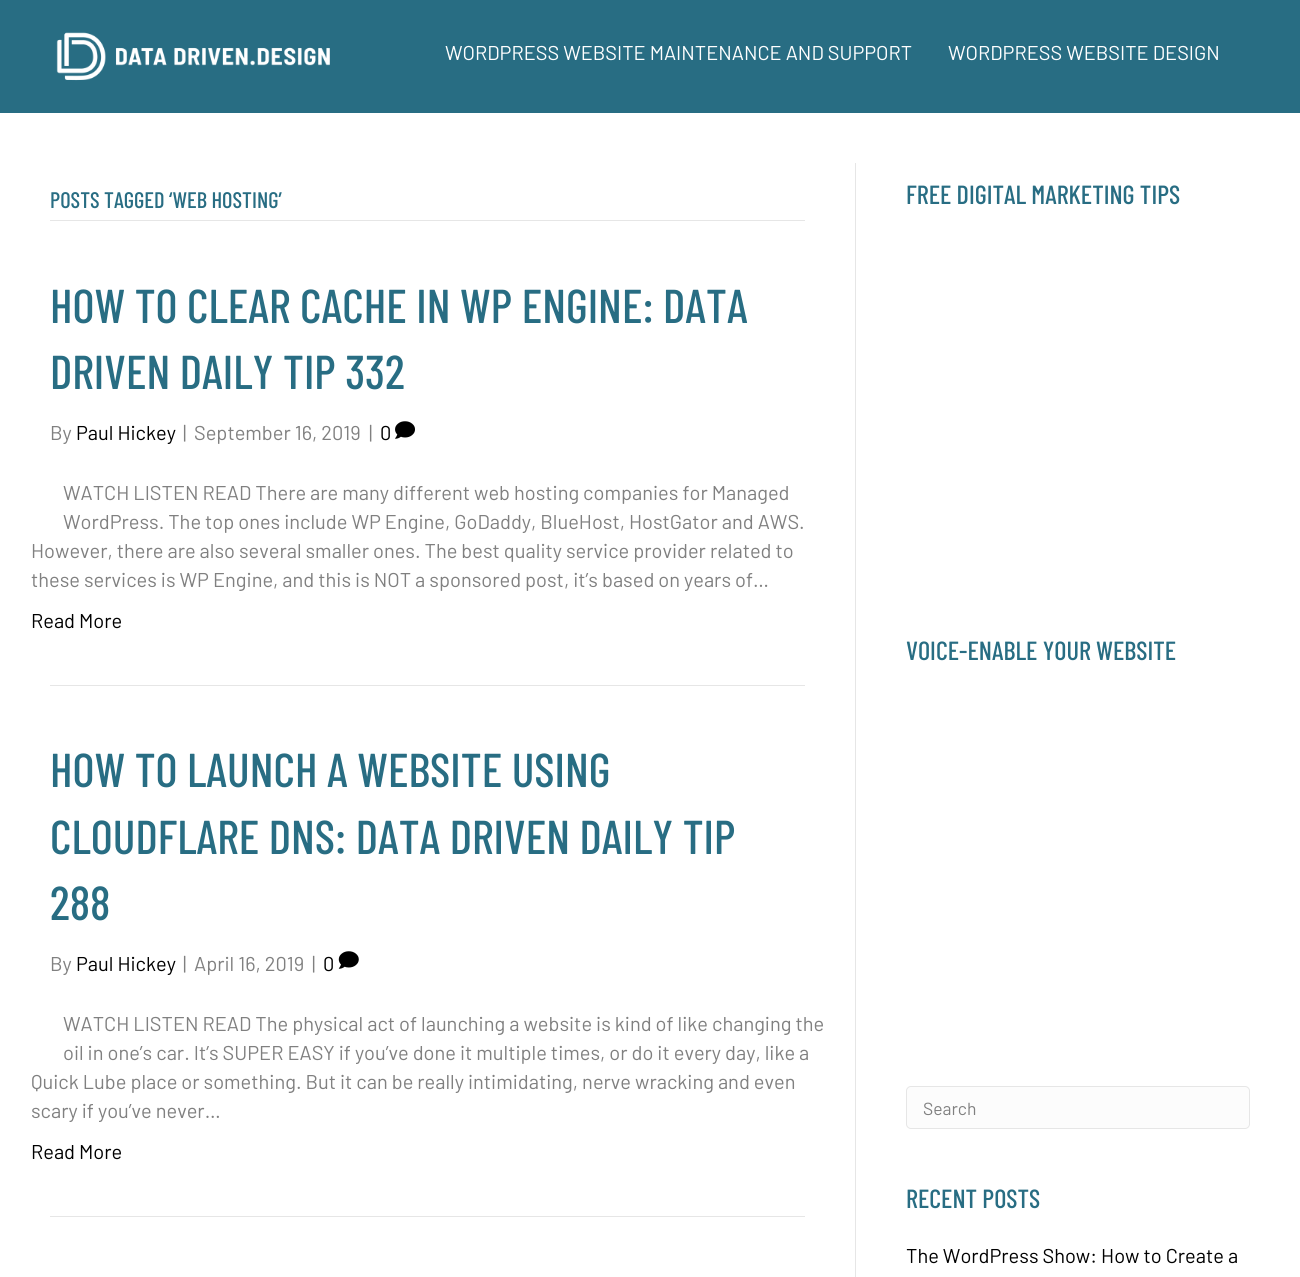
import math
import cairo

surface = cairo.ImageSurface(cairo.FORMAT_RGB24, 1300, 1277)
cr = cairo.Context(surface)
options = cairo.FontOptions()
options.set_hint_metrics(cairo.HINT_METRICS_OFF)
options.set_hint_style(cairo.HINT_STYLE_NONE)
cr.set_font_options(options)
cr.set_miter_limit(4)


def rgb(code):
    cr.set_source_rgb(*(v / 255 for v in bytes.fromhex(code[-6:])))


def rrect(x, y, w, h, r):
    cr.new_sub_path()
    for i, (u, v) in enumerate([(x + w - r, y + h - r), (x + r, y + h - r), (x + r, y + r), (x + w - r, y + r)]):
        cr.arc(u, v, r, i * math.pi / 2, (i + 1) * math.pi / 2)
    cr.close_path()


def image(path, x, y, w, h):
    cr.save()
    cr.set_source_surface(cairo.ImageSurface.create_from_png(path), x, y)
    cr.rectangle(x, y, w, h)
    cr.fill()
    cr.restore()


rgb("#ffffff")
cr.paint()
rgb("#286d83")
cr.rectangle(0, 0, 1300, 113)
cr.fill()
image("img/1.png", 56, 32, 274, 49)
for x, y, w, h, color in [
    (855, 163, 1, 1114, "#e6e6e6"),
    (50, 220, 755, 1, "#e6e6e6"),
    (50, 685, 755, 1, "#e6e6e6"),
]:
    rgb(color)
    cr.rectangle(x, y, w, h)
    cr.fill()
image("img/2.png", 395, 421, 20, 18)
cr.rectangle(50, 1216, 755, 1)
cr.fill()
image("img/3.png", 338, 951, 21, 18)
rgb("#fcfcfc")
rrect(906.5, 1086.5, 343, 42, 4.5)
cr.fill_preserve()
rgb("#e6e6e6")
cr.set_line_width(1)
cr.stroke()
cr.select_font_face("Barlow")
cr.set_font_size(20)
rgb("#ffffff")
cr.move_to(445, 60)
cr.show_text("WORDPRESS WEBSITE MAINTENANCE AND SUPPORT")
cr.move_to(948, 60)
cr.show_text("WORDPRESS WEBSITE DESIGN")
cr.select_font_face("Barlow Condensed Medium")
cr.set_font_size(22.5)
rgb("#286d83")
cr.move_to(50, 208)
cr.show_text("POSTS TAGGED ‘WEB HOSTING’")
cr.set_font_size(47.5)
cr.move_to(50, 323)
cr.show_text("HOW TO CLEAR CACHE IN WP ENGINE: DATA")
cr.move_to(50, 389)
cr.show_text("DRIVEN DAILY TIP 332")
cr.select_font_face("Barlow")
cr.set_font_size(20)
rgb("#808080")
cr.move_to(50, 440)
cr.show_text("By")
rgb("#000000")
cr.move_to(76, 440)
cr.show_text("Paul Hickey")
rgb("#808080")
for x, y, s in [
    (183, 440, "|"),
    (194, 440, "September 16, 2019"),
    (369, 440, "|"),
]:
    cr.move_to(x, y)
    cr.show_text(s)
rgb("#000000")
cr.move_to(380, 440)
cr.show_text("0")
rgb("#808080")
for x, y, s in [
    (63, 500, "WATCH LISTEN READ There are many different web hosting companies for Managed"),
    (63, 529, "WordPress. The top ones include WP Engine, GoDaddy, BlueHost, HostGator and AWS."),
    (31, 558, "However, there are also several smaller ones. The best quality service provider related to"),
    (31, 587, "these services is WP Engine, and this is NOT a sponsored post, it’s based on years of…"),
]:
    cr.move_to(x, y)
    cr.show_text(s)
rgb("#000000")
cr.move_to(31, 628)
cr.show_text("Read More")
cr.select_font_face("Barlow Condensed Medium")
cr.set_font_size(47.5)
rgb("#286d83")
for x, y, s in [
    (50, 787, "HOW TO LAUNCH A WEBSITE USING"),
    (50, 854, "CLOUDFLARE DNS: DATA DRIVEN DAILY TIP"),
    (50, 920, "288"),
]:
    cr.move_to(x, y)
    cr.show_text(s)
cr.select_font_face("Barlow")
cr.set_font_size(20)
rgb("#808080")
cr.move_to(50, 971)
cr.show_text("By")
rgb("#000000")
cr.move_to(76, 971)
cr.show_text("Paul Hickey")
rgb("#808080")
for x, y, s in [
    (183, 971, "|"),
    (194, 971, "April 16, 2019"),
    (312, 971, "|"),
]:
    cr.move_to(x, y)
    cr.show_text(s)
rgb("#000000")
cr.move_to(323, 971)
cr.show_text("0")
rgb("#808080")
for x, y, s in [
    (63, 1031, "WATCH LISTEN READ The physical act of launching a website is kind of like changing the"),
    (63, 1060, "oil in one’s car. It’s SUPER EASY if you’ve done it multiple times, or do it every day, like a"),
    (31, 1089, "Quick Lube place or something. But it can be really intimidating, nerve wracking and even"),
    (31, 1118, "scary if you’ve never…"),
]:
    cr.move_to(x, y)
    cr.show_text(s)
rgb("#000000")
cr.move_to(31, 1159)
cr.show_text("Read More")
cr.select_font_face("Barlow Condensed Medium")
cr.set_font_size(26.25)
rgb("#286d83")
cr.move_to(906, 204)
cr.show_text("FREE DIGITAL MARKETING TIPS")
cr.move_to(906, 660)
cr.show_text("VOICE-ENABLE YOUR WEBSITE")
cr.select_font_face("Barlow")
cr.set_font_size(17.5)
rgb("#808080")
cr.move_to(923, 1115)
cr.show_text("Search")
cr.select_font_face("Barlow Condensed Medium")
cr.set_font_size(26.25)
rgb("#286d83")
cr.move_to(906, 1208)
cr.show_text("RECENT POSTS")
cr.select_font_face("Barlow")
cr.set_font_size(20)
rgb("#000000")
cr.move_to(906, 1263)
cr.show_text("The WordPress Show: How to Create a")
surface.write_to_png("page.png")
